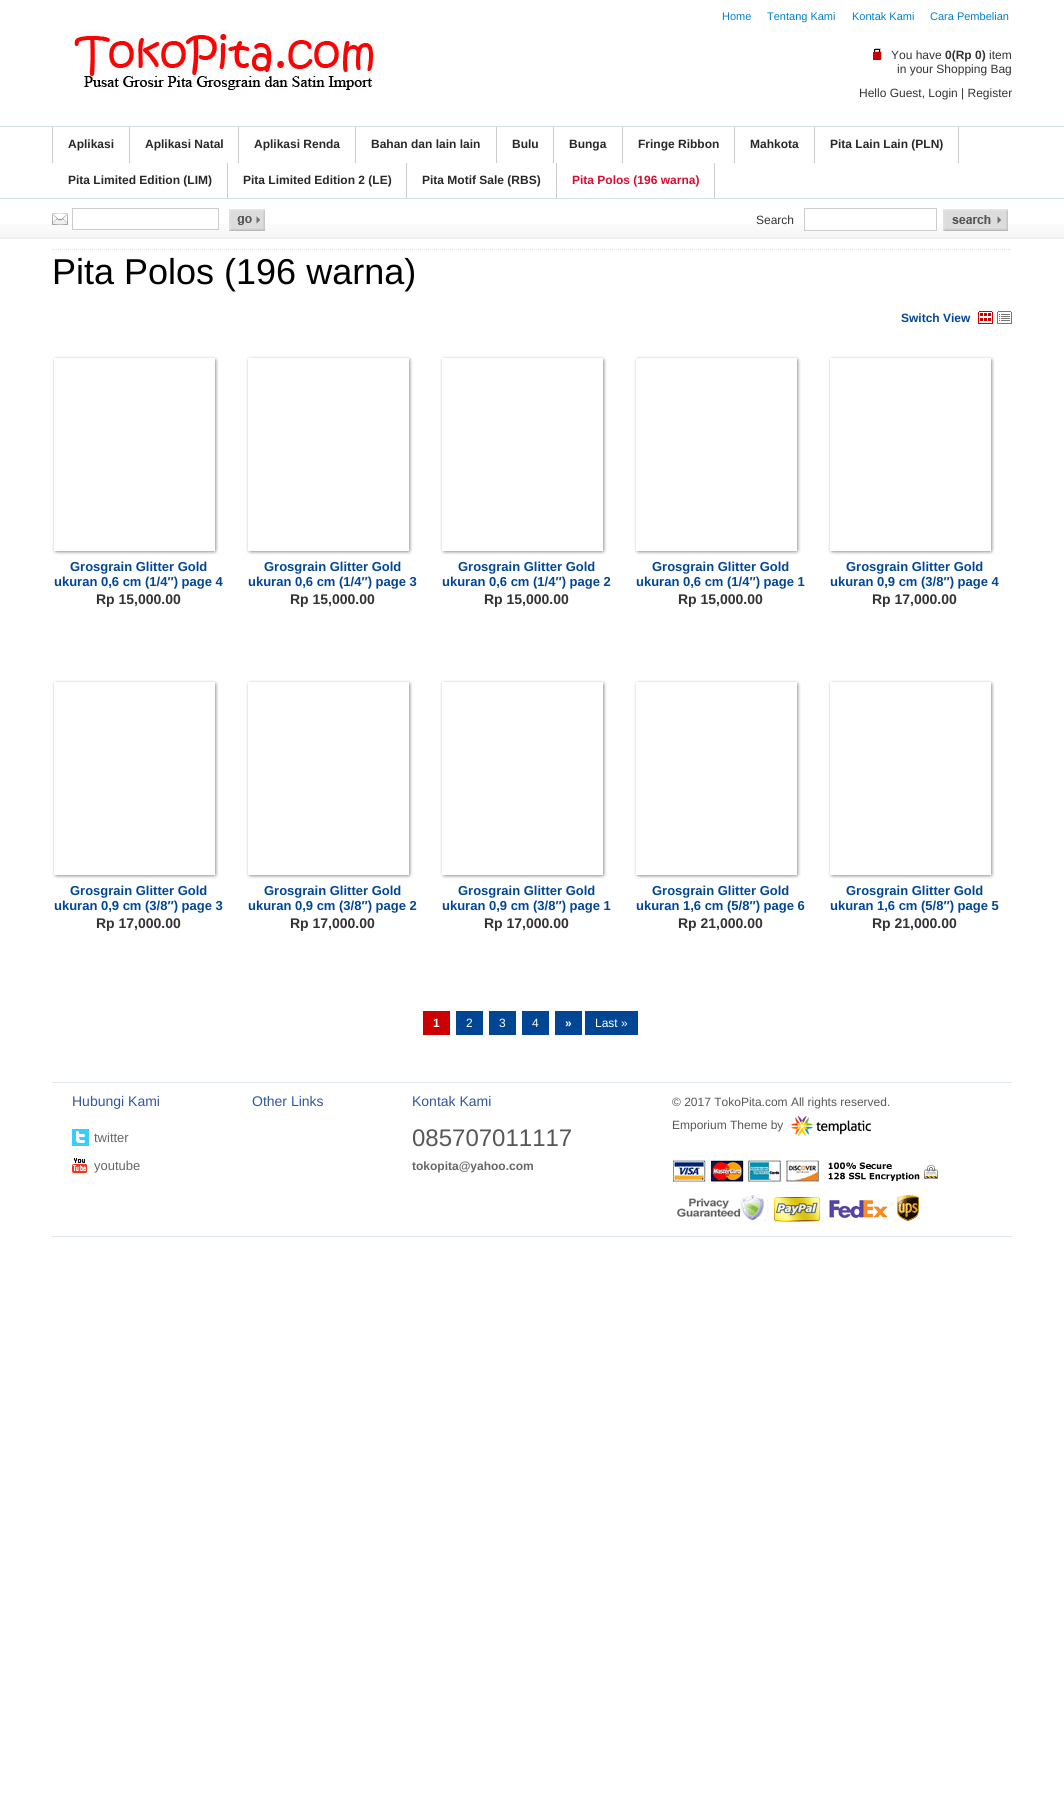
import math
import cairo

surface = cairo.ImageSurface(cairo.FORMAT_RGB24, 1064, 1801)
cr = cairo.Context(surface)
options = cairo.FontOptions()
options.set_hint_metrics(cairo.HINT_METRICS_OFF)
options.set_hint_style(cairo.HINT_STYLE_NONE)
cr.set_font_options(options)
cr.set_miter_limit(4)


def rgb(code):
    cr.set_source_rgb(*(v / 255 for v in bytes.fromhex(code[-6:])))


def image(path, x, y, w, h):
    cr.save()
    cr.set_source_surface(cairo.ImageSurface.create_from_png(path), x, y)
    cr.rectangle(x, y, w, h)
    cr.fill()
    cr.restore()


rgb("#ffffff")
cr.paint()
image("img/1.png", 68, 30, 312, 63)
image("img/2.png", 873, 48, 9, 12)
for x, y, w, h, color in [
    (0, 126, 1064, 1, "#d8e1e5"),
    (0, 198, 1064, 1, "#d8e1e5"),
    (52, 127, 1, 36, "#cccccc"),
    (129, 127, 1, 36, "#cccccc"),
    (238, 127, 1, 36, "#cccccc"),
    (355, 127, 1, 36, "#cccccc"),
    (496, 127, 1, 36, "#cccccc"),
    (553, 127, 1, 36, "#cccccc"),
    (622, 127, 1, 36, "#cccccc"),
    (734, 127, 1, 36, "#cccccc"),
    (814, 127, 1, 36, "#cccccc"),
    (958, 127, 1, 36, "#cccccc"),
    (227, 163, 1, 35, "#cccccc"),
    (406, 163, 1, 35, "#cccccc"),
    (556, 163, 1, 35, "#cccccc"),
    (714, 163, 1, 35, "#cccccc"),
]:
    rgb(color)
    cr.rectangle(x, y, w, h)
    cr.fill()
image("img/3.png", 0, 224, 1064, 15)
image("img/4.png", 52, 213, 16, 12)
rgb("#ffffff")
cr.rectangle(73, 224, 145, 5)
cr.fill()
cr.rectangle(72.5, 208.5, 146, 21)
rgb("#cccccc")
cr.set_line_width(1)
cr.stroke()
image("img/5.png", 229, 209, 36, 22)
rgb("#ffffff")
cr.rectangle(805, 224, 131, 6)
cr.fill()
cr.rectangle(804.5, 208.5, 132, 22)
rgb("#cccccc")
cr.stroke()
image("img/6.png", 943, 209, 65, 22)
cr.new_path()
cr.move_to(52, 249.5)
cr.line_to(1012, 249.5)
rgb("#dfdfdf")
cr.set_dash([1, 1])
cr.stroke()
image("img/7.png", 978, 311, 34, 13)
image("img/8.png", 52, 356, 167, 199)
image("img/8.png", 246, 356, 167, 199)
image("img/8.png", 440, 356, 167, 199)
image("img/8.png", 634, 356, 167, 199)
image("img/8.png", 828, 356, 167, 199)
image("img/8.png", 52, 680, 167, 199)
image("img/8.png", 246, 680, 167, 199)
image("img/8.png", 440, 680, 167, 199)
image("img/8.png", 634, 680, 167, 199)
image("img/8.png", 828, 680, 167, 199)
for x, y, w, h, color in [
    (423, 1011, 27, 24, "#cc0000"),
    (456, 1011, 27, 24, "#014694"),
    (489, 1011, 27, 24, "#014694"),
    (522, 1011, 27, 24, "#014694"),
    (555, 1011, 27, 24, "#014694"),
    (585, 1011, 53, 24, "#014694"),
    (52, 1082, 960, 1, "#e0e6f0"),
    (52, 1236, 960, 1, "#e0e6f0"),
]:
    rgb(color)
    cr.rectangle(x, y, w, h)
    cr.fill()
image("img/9.png", 72, 1129, 17, 17)
image("img/10.png", 72, 1158, 15, 15)
image("img/11.png", 791, 1116, 80, 20)
image("img/12.png", 673, 1160, 265, 62)
cr.select_font_face("Liberation Sans")
cr.set_font_size(11)
rgb("#0281ca")
for x, y, s in [
    (722, 20, "Home"),
    (767, 20, "Tentang Kami"),
    (852, 20, "Kontak Kami"),
    (930, 20, "Cara Pembelian"),
]:
    cr.move_to(x, y)
    cr.show_text(s)
cr.set_font_size(12)
rgb("#333333")
cr.move_to(891, 59)
cr.show_text("You have")
cr.select_font_face("Liberation Sans", cairo.FONT_SLANT_NORMAL, cairo.FONT_WEIGHT_BOLD)
cr.move_to(945, 59)
cr.show_text("0(Rp 0)")
cr.select_font_face("Liberation Sans")
for x, y, s in [
    (989, 59, "item"),
    (897, 73, "in your Shopping Bag"),
    (859, 97, "Hello Guest, Login | Register"),
]:
    cr.move_to(x, y)
    cr.show_text(s)
cr.select_font_face("Liberation Sans", cairo.FONT_SLANT_NORMAL, cairo.FONT_WEIGHT_BOLD)
rgb("#272928")
for x, y, s in [
    (68, 148, "Aplikasi"),
    (145, 148, "Aplikasi Natal"),
    (254, 148, "Aplikasi Renda"),
    (371, 148, "Bahan dan lain lain"),
    (512, 148, "Bulu"),
    (569, 148, "Bunga"),
    (638, 148, "Fringe Ribbon"),
    (750, 148, "Mahkota"),
    (830, 148, "Pita Lain Lain (PLN)"),
    (68, 184, "Pita Limited Edition (LIM)"),
    (243, 184, "Pita Limited Edition 2 (LE)"),
    (422, 184, "Pita Motif Sale (RBS)"),
]:
    cr.move_to(x, y)
    cr.show_text(s)
rgb("#d70e32")
cr.move_to(572, 184)
cr.show_text("Pita Polos (196 warna)")
cr.select_font_face("Liberation Sans")
rgb("#333333")
cr.move_to(756, 224)
cr.show_text("Search")
cr.set_font_size(36)
rgb("#000000")
cr.move_to(52, 284)
cr.show_text("Pita Polos (196 warna)")
cr.select_font_face("Liberation Sans", cairo.FONT_SLANT_NORMAL, cairo.FONT_WEIGHT_BOLD)
cr.set_font_size(12)
rgb("#014694")
cr.move_to(901, 322)
cr.show_text("Switch View")
cr.set_font_size(13)
cr.move_to(70, 571)
cr.show_text("Grosgrain Glitter Gold")
cr.move_to(54, 586)
cr.show_text("ukuran 0,6 cm (1/4″) page 4")
cr.set_font_size(14)
rgb("#333333")
cr.move_to(96, 604)
cr.show_text("Rp 15,000.00")
cr.set_font_size(13)
rgb("#014694")
cr.move_to(264, 571)
cr.show_text("Grosgrain Glitter Gold")
cr.move_to(248, 586)
cr.show_text("ukuran 0,6 cm (1/4″) page 3")
cr.set_font_size(14)
rgb("#333333")
cr.move_to(290, 604)
cr.show_text("Rp 15,000.00")
cr.set_font_size(13)
rgb("#014694")
cr.move_to(458, 571)
cr.show_text("Grosgrain Glitter Gold")
cr.move_to(442, 586)
cr.show_text("ukuran 0,6 cm (1/4″) page 2")
cr.set_font_size(14)
rgb("#333333")
cr.move_to(484, 604)
cr.show_text("Rp 15,000.00")
cr.set_font_size(13)
rgb("#014694")
cr.move_to(652, 571)
cr.show_text("Grosgrain Glitter Gold")
cr.move_to(636, 586)
cr.show_text("ukuran 0,6 cm (1/4″) page 1")
cr.set_font_size(14)
rgb("#333333")
cr.move_to(678, 604)
cr.show_text("Rp 15,000.00")
cr.set_font_size(13)
rgb("#014694")
cr.move_to(846, 571)
cr.show_text("Grosgrain Glitter Gold")
cr.move_to(830, 586)
cr.show_text("ukuran 0,9 cm (3/8″) page 4")
cr.set_font_size(14)
rgb("#333333")
cr.move_to(872, 604)
cr.show_text("Rp 17,000.00")
cr.set_font_size(13)
rgb("#014694")
cr.move_to(70, 895)
cr.show_text("Grosgrain Glitter Gold")
cr.move_to(54, 910)
cr.show_text("ukuran 0,9 cm (3/8″) page 3")
cr.set_font_size(14)
rgb("#333333")
cr.move_to(96, 928)
cr.show_text("Rp 17,000.00")
cr.set_font_size(13)
rgb("#014694")
cr.move_to(264, 895)
cr.show_text("Grosgrain Glitter Gold")
cr.move_to(248, 910)
cr.show_text("ukuran 0,9 cm (3/8″) page 2")
cr.set_font_size(14)
rgb("#333333")
cr.move_to(290, 928)
cr.show_text("Rp 17,000.00")
cr.set_font_size(13)
rgb("#014694")
cr.move_to(458, 895)
cr.show_text("Grosgrain Glitter Gold")
cr.move_to(442, 910)
cr.show_text("ukuran 0,9 cm (3/8″) page 1")
cr.set_font_size(14)
rgb("#333333")
cr.move_to(484, 928)
cr.show_text("Rp 17,000.00")
cr.set_font_size(13)
rgb("#014694")
cr.move_to(652, 895)
cr.show_text("Grosgrain Glitter Gold")
cr.move_to(636, 910)
cr.show_text("ukuran 1,6 cm (5/8″) page 6")
cr.set_font_size(14)
rgb("#333333")
cr.move_to(678, 928)
cr.show_text("Rp 21,000.00")
cr.set_font_size(13)
rgb("#014694")
cr.move_to(846, 895)
cr.show_text("Grosgrain Glitter Gold")
cr.move_to(830, 910)
cr.show_text("ukuran 1,6 cm (5/8″) page 5")
cr.set_font_size(14)
rgb("#333333")
cr.move_to(872, 928)
cr.show_text("Rp 21,000.00")
cr.set_font_size(12)
rgb("#ffffff")
cr.move_to(433, 1027)
cr.show_text("1")
cr.select_font_face("Liberation Sans")
for x, y, s in [
    (466, 1027, "2"),
    (499, 1027, "3"),
    (532, 1027, "4"),
]:
    cr.move_to(x, y)
    cr.show_text(s)
cr.select_font_face("Liberation Sans", cairo.FONT_SLANT_NORMAL, cairo.FONT_WEIGHT_BOLD)
cr.move_to(565, 1027)
cr.show_text("»")
cr.select_font_face("Liberation Sans")
cr.move_to(595, 1027)
cr.show_text("Last »")
cr.set_font_size(14)
rgb("#30569c")
cr.move_to(72, 1106)
cr.show_text("Hubungi Kami")
cr.set_font_size(13)
rgb("#666666")
cr.move_to(94, 1142)
cr.show_text("twitter")
cr.move_to(94, 1170)
cr.show_text("youtube")
cr.set_font_size(14)
rgb("#30569c")
cr.move_to(252, 1106)
cr.show_text("Other Links")
cr.move_to(412, 1106)
cr.show_text("Kontak Kami")
cr.set_font_size(24)
rgb("#575757")
cr.move_to(412, 1146)
cr.show_text("085707011117")
cr.select_font_face("Liberation Sans", cairo.FONT_SLANT_NORMAL, cairo.FONT_WEIGHT_BOLD)
cr.set_font_size(12)
rgb("#666666")
cr.move_to(412, 1170)
cr.show_text("tokopita@yahoo.com")
cr.select_font_face("Liberation Sans")
rgb("#575757")
cr.move_to(672, 1106)
cr.show_text("© 2017 TokoPita.com All rights reserved.")
cr.move_to(672, 1129)
cr.show_text("Emporium Theme by")
surface.write_to_png("page.png")
